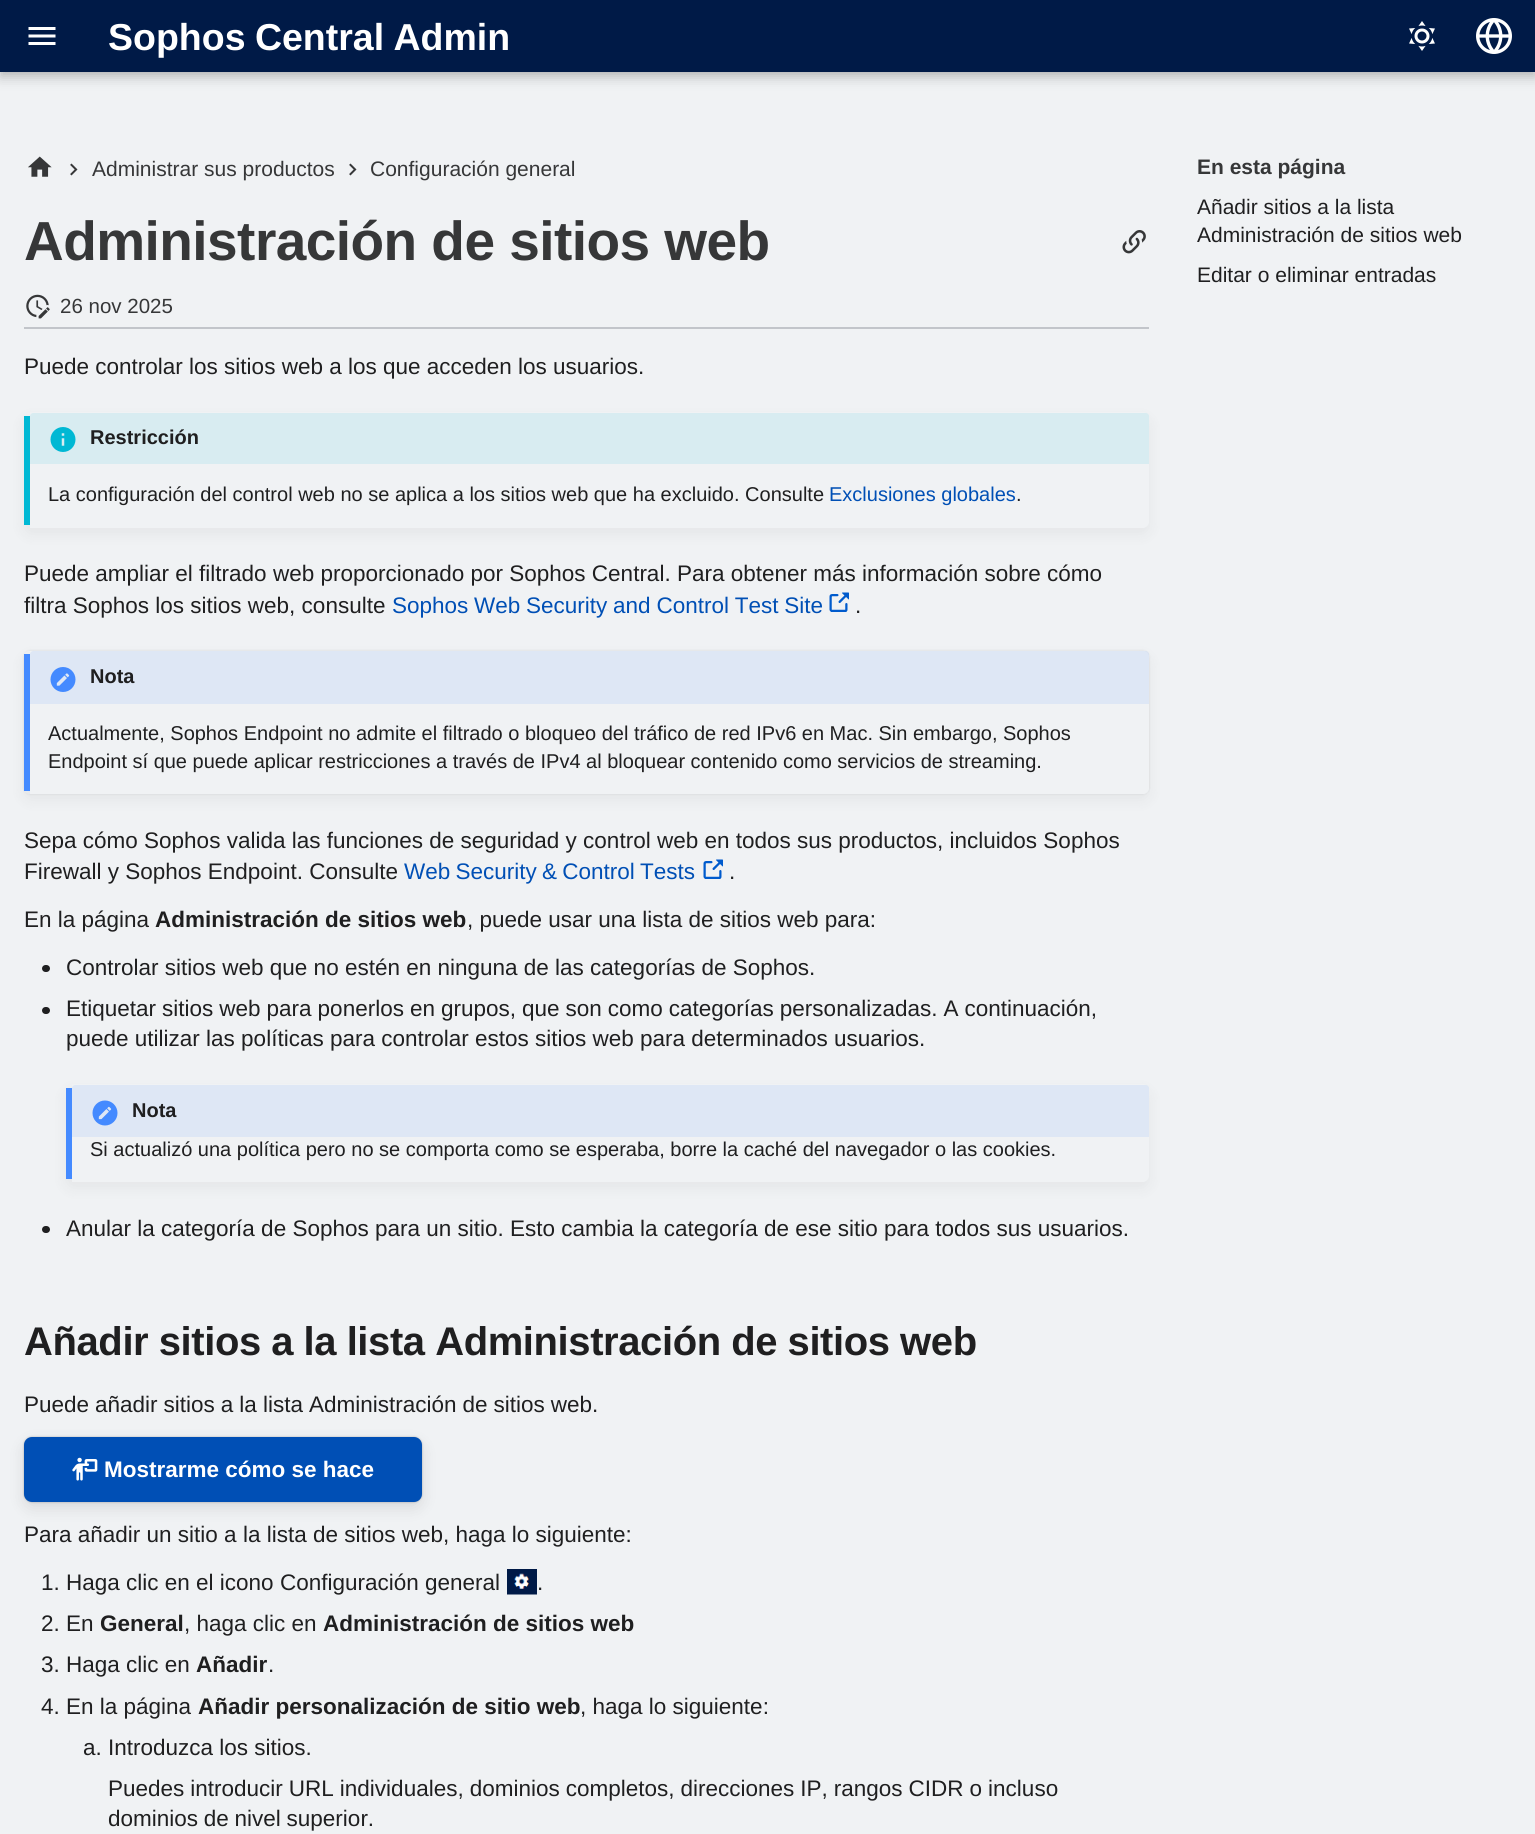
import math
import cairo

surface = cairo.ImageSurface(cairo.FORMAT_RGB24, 1535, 1834)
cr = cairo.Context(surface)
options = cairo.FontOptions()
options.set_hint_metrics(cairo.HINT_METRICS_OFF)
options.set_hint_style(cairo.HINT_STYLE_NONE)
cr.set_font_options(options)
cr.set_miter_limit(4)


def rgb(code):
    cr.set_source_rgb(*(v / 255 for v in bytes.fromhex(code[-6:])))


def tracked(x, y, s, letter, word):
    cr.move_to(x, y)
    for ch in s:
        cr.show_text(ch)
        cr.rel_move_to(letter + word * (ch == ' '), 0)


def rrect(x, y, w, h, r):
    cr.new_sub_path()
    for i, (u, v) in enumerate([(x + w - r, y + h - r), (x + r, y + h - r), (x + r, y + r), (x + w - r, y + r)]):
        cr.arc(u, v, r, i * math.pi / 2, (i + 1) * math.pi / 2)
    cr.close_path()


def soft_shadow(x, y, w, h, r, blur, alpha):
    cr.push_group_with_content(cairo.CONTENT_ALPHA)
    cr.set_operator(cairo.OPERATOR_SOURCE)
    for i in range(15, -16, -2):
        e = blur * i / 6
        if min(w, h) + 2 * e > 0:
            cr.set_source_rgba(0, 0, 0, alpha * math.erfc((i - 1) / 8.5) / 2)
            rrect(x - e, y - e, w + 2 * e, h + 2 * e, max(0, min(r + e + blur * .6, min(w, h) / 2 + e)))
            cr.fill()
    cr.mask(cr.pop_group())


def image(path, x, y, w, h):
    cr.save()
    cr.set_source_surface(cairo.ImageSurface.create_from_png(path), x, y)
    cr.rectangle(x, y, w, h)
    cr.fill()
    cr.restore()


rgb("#f0f2f4")
cr.paint()
rgb("#000000")
soft_shadow(0, 6, 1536, 72, 0, 6, 0.2)
soft_shadow(0, 0, 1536, 72, 0, 3, 0.1)
rgb("#001a47")
cr.rectangle(0, 0, 1535, 72)
cr.fill()
image("img/1.png", 28, 27, 28, 18)
image("img/2.png", 1409, 21, 26, 30)
image("img/3.png", 1476, 18, 36, 36)
image("img/4.png", 28, 156, 24, 21)
image("img/5.png", 70, 163, 8, 13)
image("img/5.png", 349, 163, 8, 13)
image("img/6.png", 1122, 230, 24, 24)
rgb("#c2c5ca")
cr.rectangle(24, 327, 1125, 2)
cr.fill()
image("img/7.png", 26, 294, 24, 25)
rgb("#000000")
soft_shadow(24, 419, 1125, 115, 6, 7.5, 0.05)
rgb("#f0f2f4")
cr.new_path()
cr.move_to(30, 412)
cr.line_to(1143, 412)
cr.curve_to(1146, 412, 1149, 415, 1149, 418)
cr.line_to(1149, 522)
cr.curve_to(1149, 525, 1146, 528, 1143, 528)
cr.line_to(30, 528)
cr.close_path()
cr.fill()
rgb("#00b8d4")
cr.rectangle(24, 416, 6, 109)
cr.fill()
cr.set_source_rgba(0, 0.722, 0.831, 0.1)
cr.new_path()
cr.move_to(33, 413)
cr.line_to(1146, 413)
cr.curve_to(1147.5, 413, 1149, 414.5, 1149, 416)
cr.line_to(1149, 464)
cr.line_to(30, 464)
cr.line_to(30, 416)
cr.curve_to(30, 414.5, 31.5, 413, 33, 413)
cr.close_path()
cr.fill()
image("img/8.png", 50, 427, 26, 25)
image("img/9.png", 829, 592, 20, 20)
cr.save()
cr.set_fill_rule(cairo.FILL_RULE_EVEN_ODD)
cr.new_path()
cr.move_to(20, 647)
cr.line_to(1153, 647)
cr.line_to(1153, 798)
cr.line_to(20, 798)
cr.close_path()
cr.move_to(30, 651)
cr.line_to(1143, 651)
cr.curve_to(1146.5, 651, 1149, 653.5, 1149, 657)
cr.line_to(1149, 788)
cr.curve_to(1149, 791.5, 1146.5, 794, 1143, 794)
cr.line_to(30, 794)
cr.curve_to(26.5, 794, 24, 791.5, 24, 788)
cr.line_to(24, 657)
cr.curve_to(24, 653.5, 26.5, 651, 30, 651)
cr.close_path()
cr.clip()
rgb("#000000")
soft_shadow(24, 651, 1125, 143, 6, 1, 0.1)
cr.restore()
rgb("#000000")
soft_shadow(24, 657, 1125, 143, 6, 7.5, 0.05)
rgb("#f0f2f4")
cr.new_path()
cr.move_to(30, 651)
cr.line_to(1143, 651)
cr.curve_to(1146, 651, 1149, 654, 1149, 657)
cr.line_to(1149, 788)
cr.curve_to(1149, 791, 1146, 794, 1143, 794)
cr.line_to(30, 794)
cr.close_path()
cr.fill()
rgb("#448aff")
cr.rectangle(24, 654, 6, 137)
cr.fill()
cr.set_source_rgba(0.267, 0.541, 1, 0.1)
cr.new_path()
cr.move_to(33, 651)
cr.line_to(1146, 651)
cr.curve_to(1147.5, 651, 1149, 652.5, 1149, 654)
cr.line_to(1149, 704)
cr.line_to(30, 704)
cr.line_to(30, 654)
cr.curve_to(30, 652.5, 31.5, 651, 33, 651)
cr.close_path()
cr.fill()
image("img/10.png", 50, 667, 26, 25)
image("img/9.png", 703, 859, 20, 20)
rgb("#1f1f20")
rrect(42, 965, 8, 7, 3.5)
cr.fill()
rrect(42, 1007, 8, 7, 3.5)
cr.fill()
rgb("#000000")
soft_shadow(66, 1091, 1083, 97, 6, 7.5, 0.05)
rgb("#f0f2f4")
cr.new_path()
cr.move_to(72, 1084)
cr.line_to(1143, 1084)
cr.curve_to(1146, 1084, 1149, 1087, 1149, 1090)
cr.line_to(1149, 1176)
cr.curve_to(1149, 1179, 1146, 1182, 1143, 1182)
cr.line_to(72, 1182)
cr.close_path()
cr.fill()
rgb("#448aff")
cr.rectangle(66, 1088, 6, 91)
cr.fill()
cr.set_source_rgba(0.267, 0.541, 1, 0.1)
cr.new_path()
cr.move_to(75, 1085)
cr.line_to(1146, 1085)
cr.curve_to(1147.5, 1085, 1149, 1086.5, 1149, 1088)
cr.line_to(1149, 1137)
cr.line_to(72, 1137)
cr.line_to(72, 1088)
cr.curve_to(72, 1086.5, 73.5, 1085, 75, 1085)
cr.close_path()
cr.fill()
image("img/11.png", 92, 1100, 26, 26)
rgb("#1f1f20")
rrect(42, 1226, 8, 7, 3.5)
cr.fill()
rgb("#000000")
soft_shadow(24, 1437, 398, 65, 8, 1, 0.25)
soft_shadow(24, 1443, 398, 65, 8, 7.5, 0.1)
rgb("#004fb5")
rrect(25.5, 1438.5, 395, 62, 6.5)
cr.fill_preserve()
cr.set_line_width(3)
cr.stroke()
image("img/12.png", 72, 1457, 26, 24)
image("img/13.png", 507, 1569, 30, 26)
cr.save()
cr.rectangle(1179, 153, 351, 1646)
cr.clip()
cr.set_fill_rule(cairo.FILL_RULE_EVEN_ODD)
cr.new_path()
cr.move_to(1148, 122)
cr.line_to(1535, 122)
cr.line_to(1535, 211)
cr.line_to(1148, 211)
cr.close_path()
cr.move_to(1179, 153)
cr.line_to(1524, 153)
cr.line_to(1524, 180)
cr.line_to(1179, 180)
cr.close_path()
cr.clip()
rgb("#f0f2f4")
soft_shadow(1167, 141, 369, 51, 0, 6, 1)
cr.restore()
cr.select_font_face("Liberation Sans", cairo.FONT_SLANT_NORMAL, cairo.FONT_WEIGHT_BOLD)
cr.set_font_size(37.5)
rgb("#ffffff")
tracked(108, 50, "Sophos Central Admin", 0, -1)
cr.select_font_face("Liberation Sans")
cr.set_font_size(21)
rgb("#363738")
cr.move_to(92, 176)
cr.show_text("Administrar sus productos")
cr.move_to(370, 176)
cr.show_text("Configuración general")
cr.select_font_face("Liberation Sans", cairo.FONT_SLANT_NORMAL, cairo.FONT_WEIGHT_BOLD)
cr.set_font_size(55)
tracked(24, 260, "Administración de sitios web", -0.55, 0)
cr.select_font_face("Liberation Sans")
cr.set_font_size(20.5)
cr.move_to(60, 313)
cr.show_text("26 nov 2025")
cr.set_font_size(22.5)
rgb("#1f1f20")
cr.move_to(24, 374)
cr.show_text("Puede controlar los sitios web a los que acceden los usuarios.")
cr.select_font_face("Liberation Sans", cairo.FONT_SLANT_NORMAL, cairo.FONT_WEIGHT_BOLD)
cr.set_font_size(20)
cr.move_to(90, 444)
cr.show_text("Restricción")
cr.select_font_face("Liberation Sans")
cr.move_to(48, 501)
cr.show_text("La configuración del control web no se aplica a los sitios web que ha excluido. Consulte")
rgb("#004fb5")
cr.move_to(829, 501)
cr.show_text("Exclusiones globales")
rgb("#1f1f20")
cr.move_to(1016, 501)
cr.show_text(".")
cr.set_font_size(22.5)
cr.move_to(24, 581)
cr.show_text("Puede ampliar el filtrado web proporcionado por Sophos Central. Para obtener más información sobre cómo")
cr.move_to(24, 613)
cr.show_text("filtra Sophos los sitios web, consulte")
rgb("#004fb5")
tracked(392, 613, "Sophos Web Security and Control Test Site", 0, -0.5)
rgb("#1f1f20")
cr.move_to(855, 613)
cr.show_text(".")
cr.select_font_face("Liberation Sans", cairo.FONT_SLANT_NORMAL, cairo.FONT_WEIGHT_BOLD)
cr.set_font_size(20)
cr.move_to(90, 683)
cr.show_text("Nota")
cr.select_font_face("Liberation Sans")
cr.move_to(48, 740)
cr.show_text("Actualmente, Sophos Endpoint no admite el filtrado o bloqueo del tráfico de red IPv6 en Mac. Sin embargo, Sophos")
cr.move_to(48, 768)
cr.show_text("Endpoint sí que puede aplicar restricciones a través de IPv4 al bloquear contenido como servicios de streaming.")
cr.set_font_size(22.5)
cr.move_to(24, 848)
cr.show_text("Sepa cómo Sophos valida las funciones de seguridad y control web en todos sus productos, incluidos Sophos")
cr.move_to(24, 879)
cr.show_text("Firewall y Sophos Endpoint. Consulte")
rgb("#004fb5")
tracked(404, 879, "Web Security & Control Tests", 0, -1)
rgb("#1f1f20")
cr.move_to(729, 879)
cr.show_text(".")
cr.move_to(24, 927)
cr.show_text("En la página")
cr.select_font_face("Liberation Sans", cairo.FONT_SLANT_NORMAL, cairo.FONT_WEIGHT_BOLD)
cr.move_to(155, 927)
cr.show_text("Administración de sitios web")
cr.select_font_face("Liberation Sans")
cr.move_to(467, 927)
cr.show_text(", puede usar una lista de sitios web para:")
cr.move_to(66, 975)
cr.show_text("Controlar sitios web que no estén en ninguna de las categorías de Sophos.")
tracked(66, 1016, "Etiquetar sitios web para ponerlos en grupos, que son como categorías personalizadas. A continuación,", 0, -0.25)
cr.move_to(66, 1046)
cr.show_text("puede utilizar las políticas para controlar estos sitios web para determinados usuarios.")
cr.select_font_face("Liberation Sans", cairo.FONT_SLANT_NORMAL, cairo.FONT_WEIGHT_BOLD)
cr.set_font_size(20)
cr.move_to(132, 1117)
cr.show_text("Nota")
cr.select_font_face("Liberation Sans")
cr.move_to(90, 1156)
cr.show_text("Si actualizó una política pero no se comporta como se esperaba, borre la caché del navegador o las cookies.")
cr.set_font_size(22.5)
cr.move_to(66, 1236)
cr.show_text("Anular la categoría de Sophos para un sitio. Esto cambia la categoría de ese sitio para todos sus usuarios.")
cr.select_font_face("Liberation Sans", cairo.FONT_SLANT_NORMAL, cairo.FONT_WEIGHT_BOLD)
cr.set_font_size(40)
tracked(24, 1355, "Añadir sitios a la lista Administración de sitios web", -0.4, -0.25)
cr.select_font_face("Liberation Sans")
cr.set_font_size(22.5)
tracked(24, 1412, "Puede añadir sitios a la lista Administración de sitios web.", 0, -0.25)
cr.select_font_face("Liberation Sans", cairo.FONT_SLANT_NORMAL, cairo.FONT_WEIGHT_BOLD)
rgb("#ffffff")
cr.move_to(104, 1477)
cr.show_text("Mostrarme cómo se hace")
cr.select_font_face("Liberation Sans")
rgb("#1f1f20")
for x, y, s in [
    (24, 1542, "Para añadir un sitio a la lista de sitios web, haga lo siguiente:"),
    (41, 1590, "1. Haga clic en el icono Configuración general"),
    (537, 1590, "."),
    (41, 1631, "2. En"),
]:
    cr.move_to(x, y)
    cr.show_text(s)
cr.select_font_face("Liberation Sans", cairo.FONT_SLANT_NORMAL, cairo.FONT_WEIGHT_BOLD)
cr.move_to(100, 1631)
cr.show_text("General")
cr.select_font_face("Liberation Sans")
cr.move_to(184, 1631)
cr.show_text(", haga clic en")
cr.select_font_face("Liberation Sans", cairo.FONT_SLANT_NORMAL, cairo.FONT_WEIGHT_BOLD)
cr.move_to(323, 1631)
cr.show_text("Administración de sitios web")
cr.select_font_face("Liberation Sans")
cr.move_to(41, 1672)
cr.show_text("3. Haga clic en")
cr.select_font_face("Liberation Sans", cairo.FONT_SLANT_NORMAL, cairo.FONT_WEIGHT_BOLD)
cr.move_to(196, 1672)
cr.show_text("Añadir")
cr.select_font_face("Liberation Sans")
cr.move_to(268, 1672)
cr.show_text(".")
cr.move_to(41, 1714)
cr.show_text("4. En la página")
cr.select_font_face("Liberation Sans", cairo.FONT_SLANT_NORMAL, cairo.FONT_WEIGHT_BOLD)
cr.move_to(198, 1714)
cr.show_text("Añadir personalización de sitio web")
cr.select_font_face("Liberation Sans")
cr.move_to(580, 1714)
cr.show_text(", haga lo siguiente:")
cr.move_to(83, 1755)
cr.show_text("a. Introduzca los sitios.")
tracked(108, 1796, "Puedes introducir URL individuales, dominios completos, direcciones IP, rangos CIDR o incluso", 0, -0.25)
tracked(108, 1826, "dominios de nivel superior.", 0, -0.5)
cr.select_font_face("Liberation Sans", cairo.FONT_SLANT_NORMAL, cairo.FONT_WEIGHT_BOLD)
cr.set_font_size(21)
rgb("#363738")
cr.move_to(1197, 174)
cr.show_text("En esta página")
cr.select_font_face("Liberation Sans")
rgb("#1f1f20")
for x, y, s in [
    (1197, 214, "Añadir sitios a la lista"),
    (1197, 242, "Administración de sitios web"),
    (1197, 282, "Editar o eliminar entradas"),
]:
    cr.move_to(x, y)
    cr.show_text(s)
surface.write_to_png("page.png")
